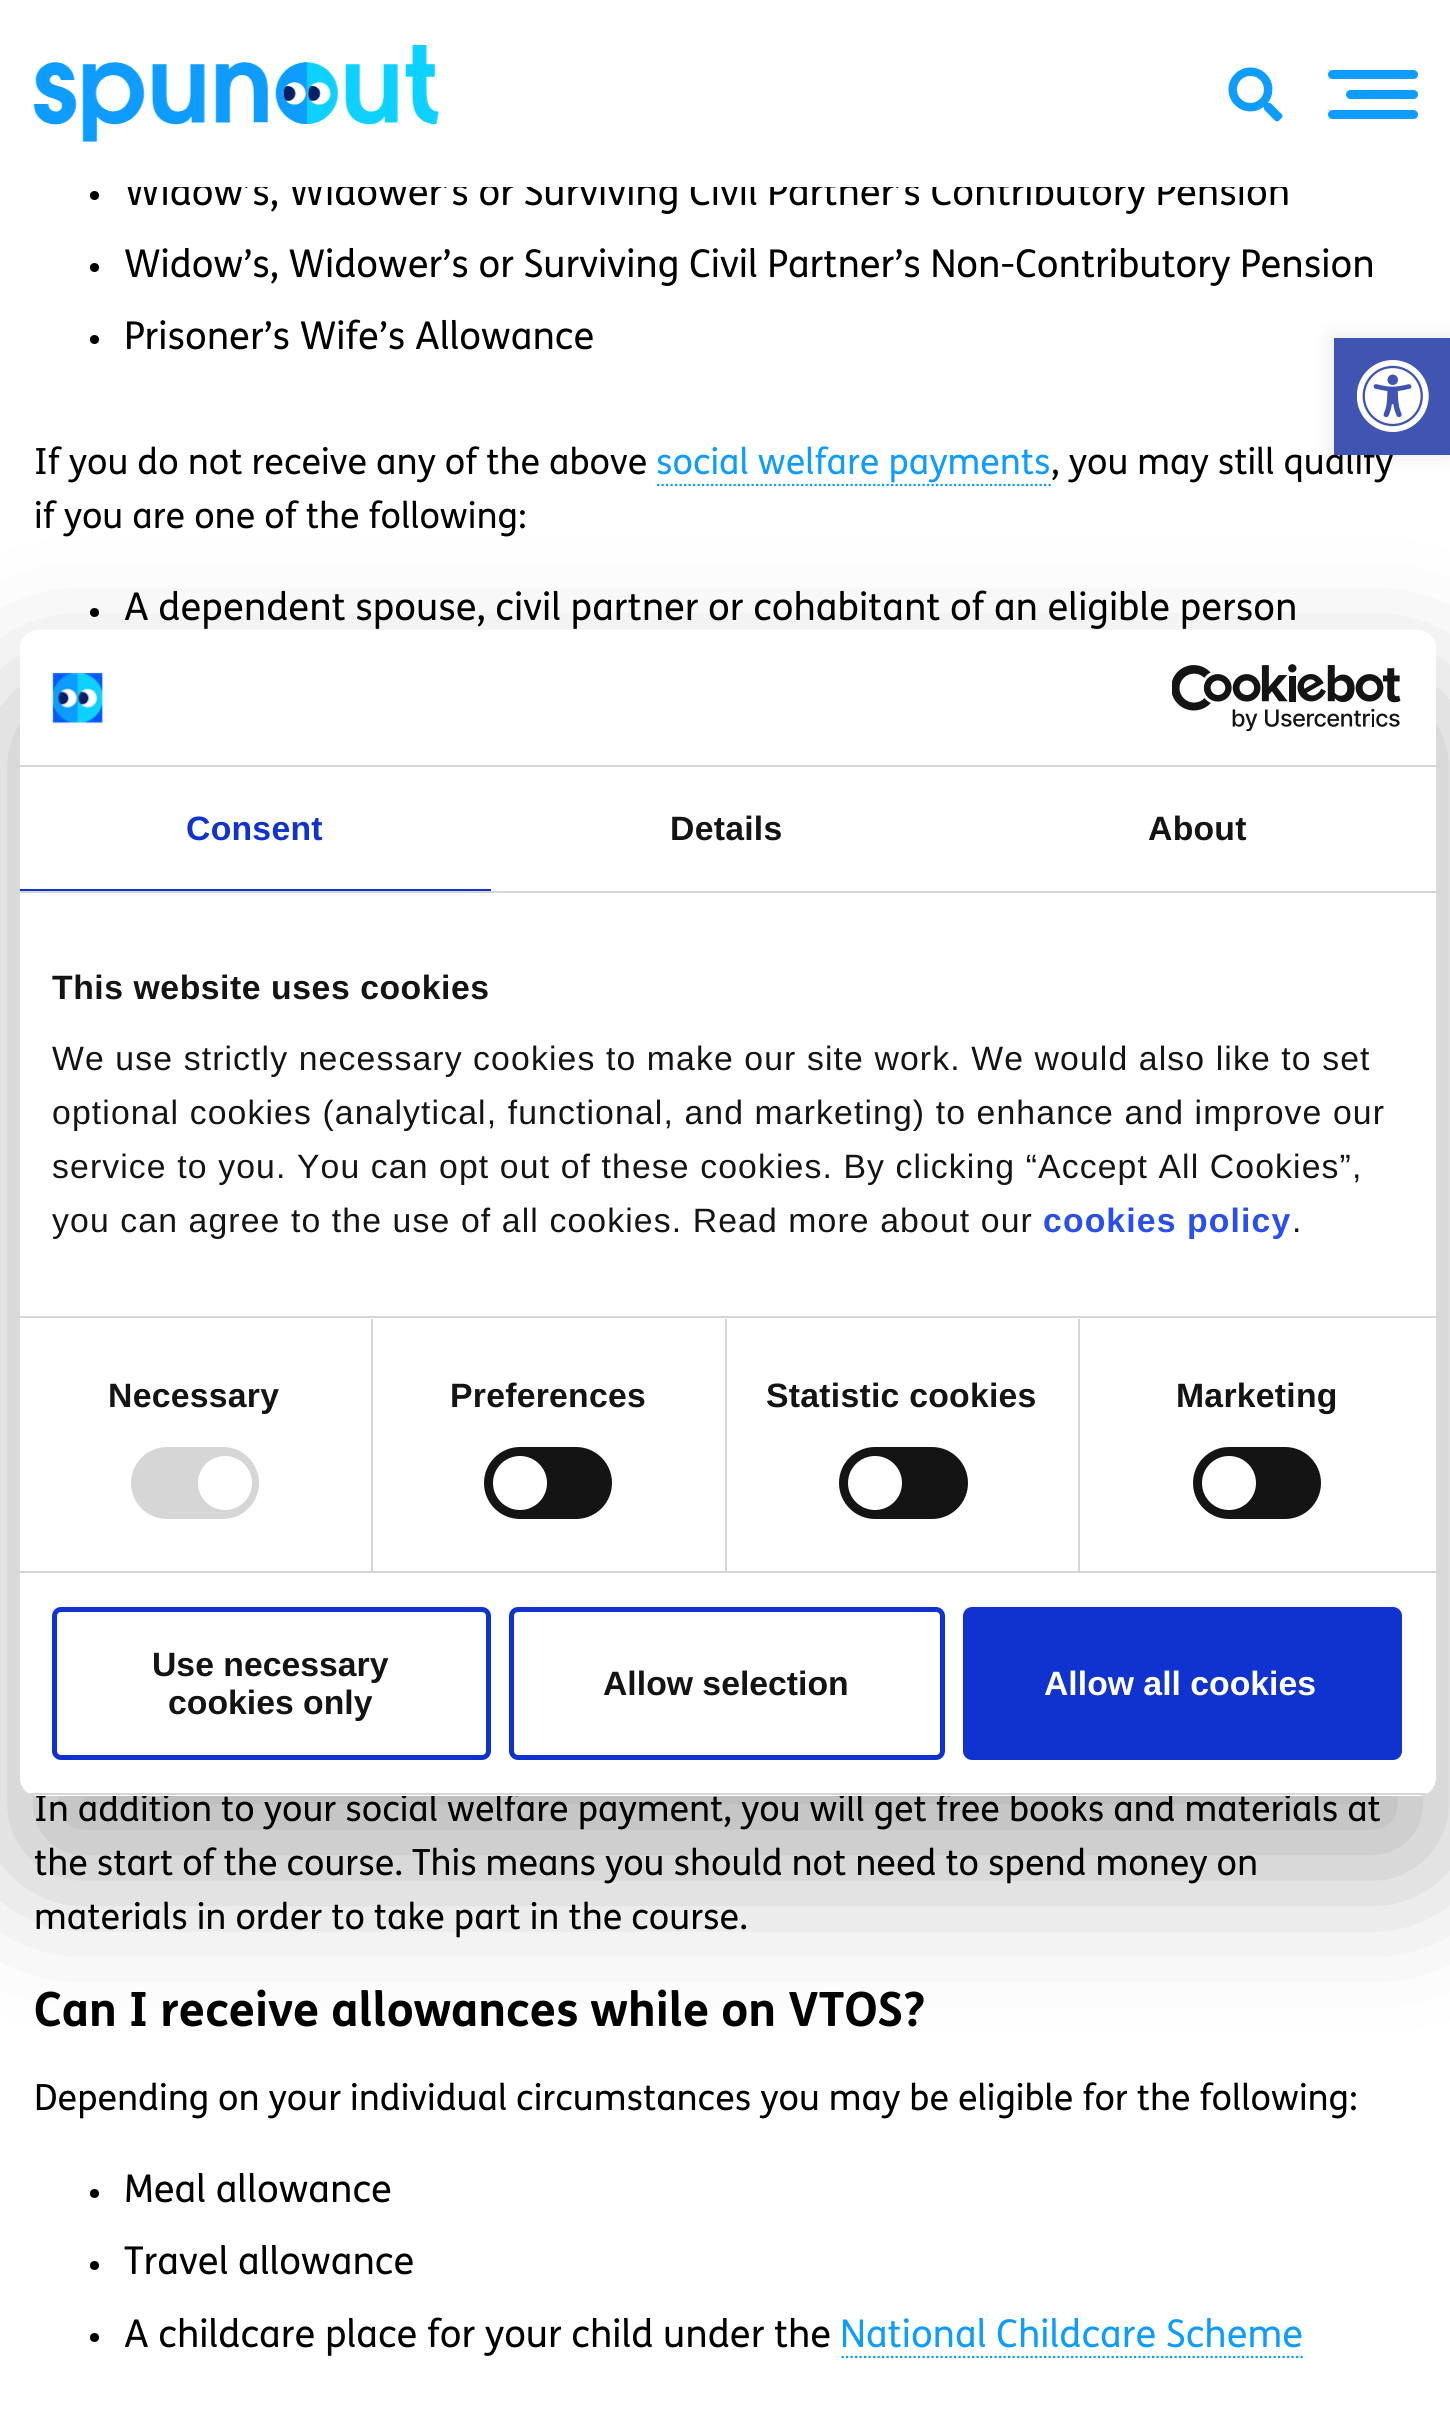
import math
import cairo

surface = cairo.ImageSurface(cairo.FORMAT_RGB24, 1450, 2425)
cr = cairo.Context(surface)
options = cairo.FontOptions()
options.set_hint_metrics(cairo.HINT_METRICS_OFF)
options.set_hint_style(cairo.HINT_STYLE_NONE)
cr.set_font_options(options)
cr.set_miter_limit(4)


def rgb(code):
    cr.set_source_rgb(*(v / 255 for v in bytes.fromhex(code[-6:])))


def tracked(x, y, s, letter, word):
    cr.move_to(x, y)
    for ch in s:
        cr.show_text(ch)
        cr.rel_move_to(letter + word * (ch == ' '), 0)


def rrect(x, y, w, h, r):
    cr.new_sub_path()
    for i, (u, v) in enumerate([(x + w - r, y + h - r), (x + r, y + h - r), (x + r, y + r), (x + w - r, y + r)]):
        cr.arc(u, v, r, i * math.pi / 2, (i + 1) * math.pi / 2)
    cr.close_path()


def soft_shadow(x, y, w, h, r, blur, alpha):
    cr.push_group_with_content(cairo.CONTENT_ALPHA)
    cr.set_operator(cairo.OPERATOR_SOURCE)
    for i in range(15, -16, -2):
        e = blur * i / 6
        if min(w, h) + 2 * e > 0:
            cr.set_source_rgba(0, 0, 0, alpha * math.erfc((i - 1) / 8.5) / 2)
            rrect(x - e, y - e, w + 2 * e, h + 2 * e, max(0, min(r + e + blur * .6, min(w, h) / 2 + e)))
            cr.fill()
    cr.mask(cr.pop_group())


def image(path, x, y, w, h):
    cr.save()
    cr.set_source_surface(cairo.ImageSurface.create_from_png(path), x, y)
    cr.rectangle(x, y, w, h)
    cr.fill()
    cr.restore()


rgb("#ffffff")
cr.paint()
image("img/1.png", 33, 45, 406, 97)
image("img/2.png", 1228, 67, 55, 55)
rgb("#0e9cff")
rrect(1328, 70, 90, 9, 4.5)
cr.fill()
rrect(1346, 90, 72, 9, 4.5)
cr.fill()
rrect(1328, 110, 90, 9, 4.5)
cr.fill()
rgb("#000000")
cr.arc(94.5, 195.5, 4.5, 0, 2 * math.pi)
cr.fill()
cr.arc(94.5, 267.5, 4.5, 0, 2 * math.pi)
cr.fill()
cr.arc(94.5, 339.5, 4.5, 0, 2 * math.pi)
cr.fill()
cr.new_path()
cr.move_to(657, 485)
cr.line_to(1051, 485)
rgb("#0e9cff")
cr.set_line_width(2.2)
cr.set_dash([2.25, 2.25])
cr.stroke()
rgb("#000000")
cr.arc(94.5, 612.5, 4.5, 0, 2 * math.pi)
cr.fill()
cr.arc(94.5, 2193.5, 4.5, 0, 2 * math.pi)
cr.fill()
cr.arc(94.5, 2265.5, 4.5, 0, 2 * math.pi)
cr.fill()
cr.arc(94.5, 2337.5, 4.5, 0, 2 * math.pi)
cr.fill()
cr.new_path()
cr.move_to(841.5, 2357)
cr.line_to(1303, 2357)
rgb("#0e9cff")
cr.stroke()
rgb("#000000")
soft_shadow(1334, 338, 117, 117, 0, 11, 0.1)
soft_shadow(20, 702, 1416, 1166, 18, 76.5, 0.3)
cr.select_font_face("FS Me")
cr.set_font_size(38.25)
rgb("#000000")
cr.move_to(124, 205)
cr.show_text("Widow’s, Widower’s or Surviving Civil Partner’s Contributory Pension")
rgb("#ffffff")
cr.rectangle(124, 175, 1162, 12)
cr.fill()
rgb("#000000")
cr.move_to(124, 277)
cr.show_text("Widow’s, Widower’s or Surviving Civil Partner’s Non-Contributory Pension")
cr.move_to(124, 349)
cr.show_text("Prisoner’s Wife’s Allowance")
cr.set_font_size(36)
cr.move_to(34, 474)
cr.show_text("If you do not receive any of the above")
rgb("#0e9cff")
cr.move_to(656, 474)
cr.show_text("social welfare payments")
rgb("#000000")
cr.move_to(1051, 474)
cr.show_text(", you may still qualify")
cr.move_to(34, 528)
cr.show_text("if you are one of the following:")
cr.set_font_size(38.25)
cr.move_to(124, 620)
cr.show_text("A dependent spouse, civil partner or cohabitant of an eligible person")
cr.set_font_size(36)
for x, y, s in [
    (34, 1821, "In addition to your social welfare payment, you will get free books and materials at"),
    (34, 1875, "the start of the course. This means you should not need to spend money on"),
    (34, 1929, "materials in order to take part in the course."),
]:
    cr.move_to(x, y)
    cr.show_text(s)
cr.select_font_face("FS Me", cairo.FONT_SLANT_NORMAL, cairo.FONT_WEIGHT_BOLD)
cr.set_font_size(47.25)
cr.move_to(34, 2026)
cr.show_text("Can I receive allowances while on VTOS?")
cr.select_font_face("FS Me")
cr.set_font_size(36)
cr.move_to(34, 2110)
cr.show_text("Depending on your individual circumstances you may be eligible for the following:")
cr.set_font_size(38.25)
for x, y, s in [
    (124, 2202, "Meal allowance"),
    (124, 2274, "Travel allowance"),
    (124, 2347, "A childcare place for your child under the"),
]:
    cr.move_to(x, y)
    cr.show_text(s)
rgb("#0e9cff")
cr.move_to(840, 2347)
cr.show_text("National Childcare Scheme")
rgb("#4054b2")
cr.rectangle(1334, 338, 116, 117)
cr.fill()
image("img/3.png", 1357, 360, 72, 72)
rgb("#ffffff")
rrect(20, 630, 1416, 1166, 18)
cr.fill()
rgb("#d6d6d6")
cr.rectangle(20, 765, 1416, 2)
cr.fill()
image("img/4.png", 52, 672, 51, 52)
image("img/5.png", 1172, 664, 229, 67)
cr.rectangle(20, 891, 1416, 2)
cr.fill()
rgb("#1032cf")
cr.rectangle(20, 889, 471, 2)
cr.fill()
cr.select_font_face("Liberation Sans", cairo.FONT_SLANT_NORMAL, cairo.FONT_WEIGHT_BOLD)
cr.set_font_size(33.75)
tracked(186, 840, "Consent", 0.25, 0)
rgb("#141414")
tracked(670, 840, "Details", 0.25, 0)
tracked(1148, 840, "About", 0.25, 0)
rgb("#d6d6d6")
cr.rectangle(20, 1316, 1416, 2)
cr.fill()
rgb("#141414")
tracked(52, 999, "This website uses cookies", 0.55, 0)
cr.select_font_face("Liberation Sans")
for x, y, s in [
    (52, 1070, "We use strictly necessary cookies to make our site work. We would also like to set"),
    (52, 1124, "optional cookies (analytical, functional, and marketing) to enhance and improve our"),
    (52, 1178, "service to you. You can opt out of these cookies. By clicking “Accept All Cookies”,"),
    (52, 1232, "you can agree to the use of all cookies. Read more about our"),
]:
    tracked(x, y, s, 1.12, 0)
cr.select_font_face("Liberation Sans", cairo.FONT_SLANT_NORMAL, cairo.FONT_WEIGHT_BOLD)
rgb("#2a4eef")
tracked(1043, 1232, "cookies policy", 1.12, 0)
cr.select_font_face("Liberation Sans")
rgb("#141414")
tracked(1292, 1232, ".", 1.12, 0)
rgb("#d6d6d6")
cr.rectangle(20, 1571, 1416, 2)
cr.fill()
cr.rectangle(371, 1319, 2, 252)
cr.fill()
cr.select_font_face("Liberation Sans", cairo.FONT_SLANT_NORMAL, cairo.FONT_WEIGHT_BOLD)
rgb("#141414")
tracked(108, 1407, "Necessary", 0.25, 0)
rgb("#d6d6d6")
rrect(131, 1447, 128, 72, 36)
cr.fill()
rgb("#ffffff")
cr.arc(225, 1483, 27, 0, 2 * math.pi)
cr.fill()
rgb("#d6d6d6")
cr.rectangle(725, 1319, 2, 252)
cr.fill()
rgb("#141414")
tracked(450, 1407, "Preferences", 0.25, 0)
rrect(484, 1447, 128, 72, 36)
cr.fill()
rgb("#ffffff")
cr.arc(520, 1483, 27, 0, 2 * math.pi)
cr.fill()
rgb("#d6d6d6")
cr.rectangle(1078, 1319, 2, 252)
cr.fill()
rgb("#141414")
tracked(766, 1407, "Statistic cookies", 0.25, 0)
rrect(839, 1447, 129, 72, 36)
cr.fill()
rgb("#ffffff")
cr.arc(875, 1483, 27, 0, 2 * math.pi)
cr.fill()
rgb("#141414")
tracked(1176, 1407, "Marketing", 0.25, 0)
rrect(1193, 1447, 128, 72, 36)
cr.fill()
rgb("#ffffff")
cr.arc(1229, 1483, 27, 0, 2 * math.pi)
cr.fill()
cr.save()
rrect(20, 630, 1416, 1166, 18)
cr.clip()
rgb("#d6d6d6")
cr.rectangle(20, 1793, 1416, 2)
cr.fill()
cr.restore()
rrect(54.5, 1609.5, 434, 148, 6.5)
rgb("#1032cf")
cr.set_line_width(5)
cr.set_dash([])
cr.stroke()
rgb("#141414")
cr.move_to(152, 1676)
cr.show_text("Use necessary")
cr.move_to(168, 1714)
cr.show_text("cookies only")
rrect(511.5, 1609.5, 431, 148, 6.5)
rgb("#1032cf")
cr.stroke()
rgb("#141414")
cr.move_to(603, 1695)
cr.show_text("Allow selection")
rgb("#1032cf")
rrect(965.5, 1609.5, 434, 148, 6.5)
cr.fill_preserve()
cr.stroke()
rgb("#ffffff")
cr.move_to(1044, 1695)
cr.show_text("Allow all cookies")
surface.write_to_png("page.png")
